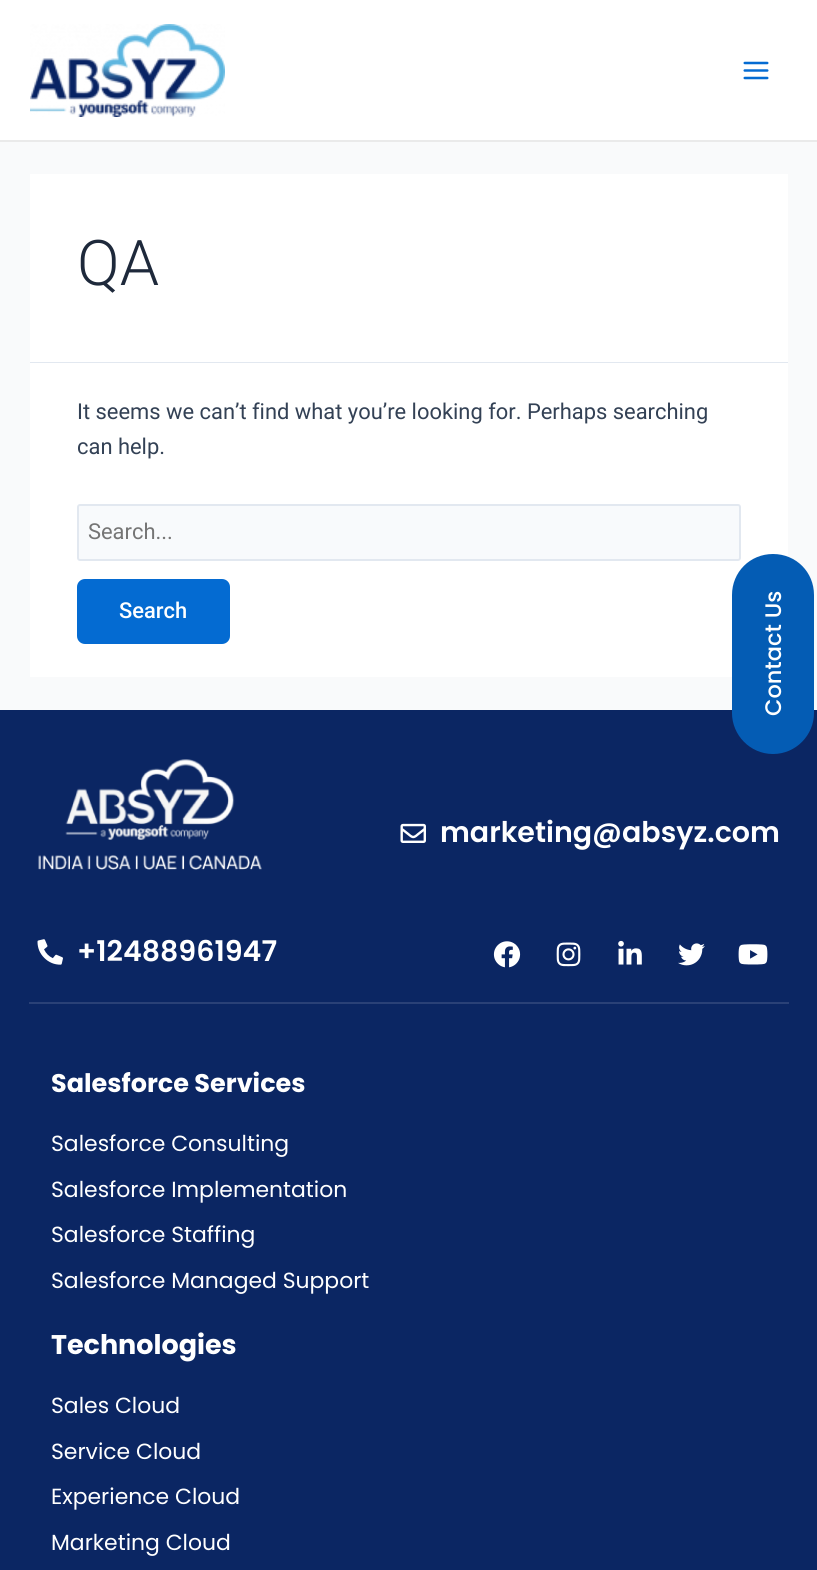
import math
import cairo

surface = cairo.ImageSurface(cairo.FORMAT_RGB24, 817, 1570)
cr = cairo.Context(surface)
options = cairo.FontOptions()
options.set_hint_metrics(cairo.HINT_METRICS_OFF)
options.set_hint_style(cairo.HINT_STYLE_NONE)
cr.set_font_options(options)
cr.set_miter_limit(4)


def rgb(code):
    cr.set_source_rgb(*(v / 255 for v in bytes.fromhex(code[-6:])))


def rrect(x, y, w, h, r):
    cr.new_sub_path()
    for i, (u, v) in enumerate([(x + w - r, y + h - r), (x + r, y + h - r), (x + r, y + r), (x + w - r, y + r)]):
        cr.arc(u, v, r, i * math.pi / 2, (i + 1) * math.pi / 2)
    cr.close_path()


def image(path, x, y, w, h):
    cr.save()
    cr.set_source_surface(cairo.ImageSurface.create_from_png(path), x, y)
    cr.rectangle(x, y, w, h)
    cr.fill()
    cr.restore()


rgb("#f9fafb")
cr.paint()
rgb("#ffffff")
cr.rectangle(0, 0, 817, 140)
cr.fill()
rgb("#eaeaea")
cr.rectangle(0, 140, 817, 2)
cr.fill()
image("img/1.png", 30, 24, 195, 93)
image("img/2.png", 743, 61, 26, 19)
for x, y, w, h, color in [
    (30, 174, 758, 188, "#ffffff"),
    (30, 362, 758, 1, "#e2e8f0"),
    (30, 363, 758, 314, "#ffffff"),
]:
    rgb(color)
    cr.rectangle(x, y, w, h)
    cr.fill()
rgb("#f8fafc")
rrect(78, 505, 662, 55, 2)
cr.fill_preserve()
rgb("#e2e8f0")
cr.stroke()
rgb("#046bd2")
rrect(77, 579, 153, 65, 8)
cr.fill()
rgb("#0b2663")
cr.rectangle(0, 710, 817, 860)
cr.fill()
rgb("#045cb4")
cr.new_path()
cr.move_to(732, 713)
cr.line_to(732, 595)
cr.curve_to(732, 572, 750, 554, 773, 554)
cr.curve_to(796, 554, 814, 572, 814, 595)
cr.line_to(814, 713)
cr.curve_to(814, 735, 796, 754, 773, 754)
cr.curve_to(750, 754, 732, 735, 732, 713)
cr.close_path()
cr.fill()
rgb("#2a4177")
cr.rectangle(29, 1002, 760, 2)
cr.fill()
image("img/3.png", 38, 759, 224, 111)
image("img/4.png", 400, 823, 26, 20)
image("img/5.png", 37, 939, 26, 26)
image("img/6.png", 493, 941, 28, 27)
image("img/7.png", 556, 942, 25, 25)
image("img/8.png", 618, 940, 24, 25)
image("img/9.png", 678, 943, 27, 23)
image("img/10.png", 738, 944, 30, 21)
cr.select_font_face("Roboto Light")
cr.set_font_size(63)
rgb("#1e293b")
cr.move_to(77, 285)
cr.show_text("QA")
cr.select_font_face("Roboto")
cr.set_font_size(21.9)
rgb("#334155")
cr.move_to(77, 419)
cr.show_text("It seems we can’t find what you’re looking for. Perhaps searching")
cr.move_to(77, 454)
cr.show_text("can help.")
rgb("#757575")
cr.move_to(88, 539)
cr.show_text("Search...")
cr.select_font_face("Roboto Medium")
rgb("#ffffff")
cr.move_to(119, 618)
cr.show_text("Search")
cr.select_font_face("Poppins Medium")
cr.set_font_size(22.5)
cr.save()
cr.translate(781, 716)
cr.rotate(-90 * math.pi / 180)
cr.move_to(0, 0)
cr.show_text("Contact Us")
cr.restore()
cr.select_font_face("Poppins SemiBold")
cr.set_font_size(28.5)
cr.move_to(440, 842)
cr.show_text("marketing@absyz.com")
cr.move_to(77, 961)
cr.show_text("+12488961947")
cr.select_font_face("Poppins", cairo.FONT_SLANT_NORMAL, cairo.FONT_WEIGHT_BOLD)
cr.set_font_size(25.5)
cr.move_to(51, 1092)
cr.show_text("Salesforce Services")
cr.select_font_face("Poppins")
cr.set_font_size(21.9)
for x, y, s in [
    (51, 1151, "Salesforce Consulting"),
    (51, 1197, "Salesforce Implementation"),
    (51, 1242, "Salesforce Staffing"),
    (51, 1288, "Salesforce Managed Support"),
]:
    cr.move_to(x, y)
    cr.show_text(s)
cr.select_font_face("Poppins", cairo.FONT_SLANT_NORMAL, cairo.FONT_WEIGHT_BOLD)
cr.set_font_size(27)
cr.move_to(51, 1354)
cr.show_text("Technologies")
cr.select_font_face("Poppins")
cr.set_font_size(21.9)
for x, y, s in [
    (51, 1413, "Sales Cloud"),
    (51, 1459, "Service Cloud"),
    (51, 1504, "Experience Cloud"),
    (51, 1550, "Marketing Cloud"),
]:
    cr.move_to(x, y)
    cr.show_text(s)
surface.write_to_png("page.png")
